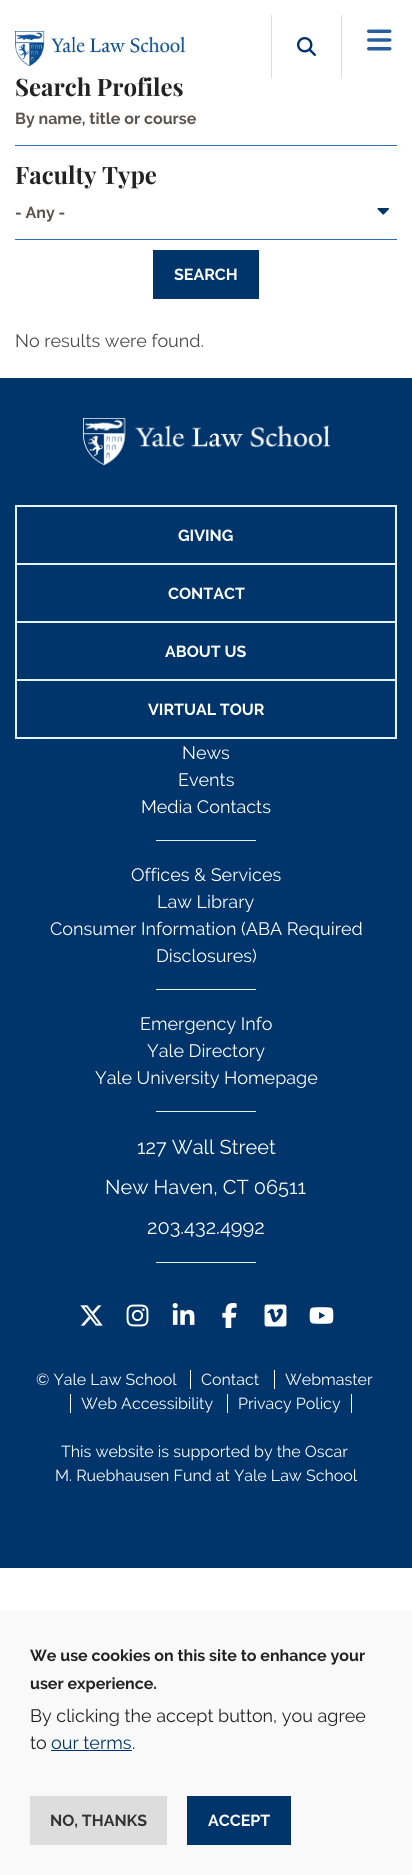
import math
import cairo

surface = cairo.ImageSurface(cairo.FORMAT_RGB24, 412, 1875)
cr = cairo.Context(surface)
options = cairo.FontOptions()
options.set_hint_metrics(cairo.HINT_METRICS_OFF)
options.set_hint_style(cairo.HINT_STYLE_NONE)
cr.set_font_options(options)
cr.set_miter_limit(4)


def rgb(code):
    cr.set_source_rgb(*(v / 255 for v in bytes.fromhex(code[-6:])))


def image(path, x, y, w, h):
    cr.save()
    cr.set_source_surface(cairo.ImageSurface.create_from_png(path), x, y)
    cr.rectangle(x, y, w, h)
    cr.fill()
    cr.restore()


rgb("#ffffff")
cr.paint()
image("img/1.png", 15, 31, 170, 35)
rgb("#dddddd")
cr.rectangle(341, 15, 1, 63)
cr.fill()
cr.rectangle(271, 15, 1, 63)
cr.fill()
image("img/2.png", 297, 37, 19, 19)
image("img/3.png", 367, 29, 25, 22)
rgb("#286dc0")
cr.rectangle(15, 145, 382, 1)
cr.fill()
image("img/4.png", 377, 208, 12, 7)
for x, y, w, h, color in [
    (15, 239, 382, 1, "#286dc0"),
    (153, 250, 106, 49, "#00356b"),
    (0, 378, 412, 1190, "#00356b"),
]:
    rgb(color)
    cr.rectangle(x, y, w, h)
    cr.fill()
image("img/5.png", 83, 418, 247, 47)
cr.rectangle(16, 506, 380, 232)
rgb("#e2f5fb")
cr.stroke()
for x, y, w, h, color in [
    (17, 563, 378, 2, "#e2f5fb"),
    (17, 621, 378, 2, "#e2f5fb"),
    (17, 679, 378, 2, "#e2f5fb"),
    (156, 840, 100, 1, "#e2f5fb"),
    (156, 989, 100, 1, "#e2f5fb"),
    (156, 1111, 100, 1, "#e2f5fb"),
    (156, 1262, 100, 1, "#e2f5fb"),
]:
    rgb(color)
    cr.rectangle(x, y, w, h)
    cr.fill()
image("img/6.png", 80, 1305, 23, 21)
image("img/7.png", 126, 1304, 23, 23)
image("img/8.png", 172, 1303, 23, 22)
image("img/9.png", 222, 1303, 15, 25)
image("img/10.png", 264, 1304, 23, 23)
image("img/11.png", 309, 1307, 25, 17)
for x, y, w, h, color in [
    (190, 1370, 1, 19, "#ffffff"),
    (274, 1370, 1, 19, "#ffffff"),
    (70, 1394, 1, 19, "#ffffff"),
    (227, 1394, 1, 19, "#ffffff"),
    (351, 1394, 1, 19, "#ffffff"),
    (0, 1611, 412, 264, "#f9f9f9"),
    (51, 1750, 81, 1, "#00356b"),
    (30, 1796, 137, 49, "#dddddd"),
    (187, 1796, 104, 49, "#00356b"),
]:
    rgb(color)
    cr.rectangle(x, y, w, h)
    cr.fill()
cr.select_font_face("Playfair Display", cairo.FONT_SLANT_NORMAL, cairo.FONT_WEIGHT_BOLD)
cr.set_font_size(24)
rgb("#222222")
cr.move_to(15, 96)
cr.show_text("Search Profiles")
cr.select_font_face("Raleway", cairo.FONT_SLANT_NORMAL, cairo.FONT_WEIGHT_BOLD)
cr.set_font_size(16)
rgb("#5b534d")
cr.move_to(15, 124)
cr.show_text("By name, title or course")
cr.select_font_face("Playfair Display", cairo.FONT_SLANT_NORMAL, cairo.FONT_WEIGHT_BOLD)
cr.set_font_size(24)
rgb("#222222")
cr.move_to(15, 184)
cr.show_text("Faculty Type")
cr.select_font_face("Raleway", cairo.FONT_SLANT_NORMAL, cairo.FONT_WEIGHT_BOLD)
cr.set_font_size(16)
rgb("#5b534d")
cr.move_to(15, 218)
cr.show_text("- Any -")
rgb("#ffffff")
cr.move_to(174, 280)
cr.show_text("SEARCH")
cr.select_font_face("Raleway")
cr.set_font_size(18)
rgb("#4a4a4a")
cr.move_to(15, 347)
cr.show_text("No results were found.")
cr.select_font_face("Raleway", cairo.FONT_SLANT_NORMAL, cairo.FONT_WEIGHT_BOLD)
cr.set_font_size(16)
rgb("#ffffff")
for x, y, s in [
    (178, 541, "GIVING"),
    (168, 599, "CONTACT"),
    (165, 657, "ABOUT US"),
    (148, 715, "VIRTUAL TOUR"),
]:
    cr.move_to(x, y)
    cr.show_text(s)
cr.select_font_face("Raleway")
cr.set_font_size(18)
for x, y, s in [
    (182, 759, "News"),
    (178, 786, "Events"),
    (141, 813, "Media Contacts"),
    (131, 881, "Offices & Services"),
    (157, 908, "Law Library"),
    (50, 935, "Consumer Information (ABA Required"),
    (156, 962, "Disclosures)"),
    (140, 1030, "Emergency Info"),
    (147, 1057, "Yale Directory"),
    (95, 1084, "Yale University Homepage"),
]:
    cr.move_to(x, y)
    cr.show_text(s)
cr.set_font_size(20)
for x, y, s in [
    (137, 1154, "127 Wall Street"),
    (105, 1194, "New Haven, CT 06511"),
    (147, 1234, "203.432.4992"),
]:
    cr.move_to(x, y)
    cr.show_text(s)
cr.set_font_size(16)
for x, y, s in [
    (36, 1385, "© Yale Law School"),
    (201, 1385, "Contact"),
    (285, 1385, "Webmaster"),
    (81, 1409, "Web Accessibility"),
    (238, 1409, "Privacy Policy"),
    (61, 1457, "This website is supported by the Oscar"),
    (55, 1481, "M. Ruebhausen Fund at Yale Law School"),
]:
    cr.move_to(x, y)
    cr.show_text(s)
cr.select_font_face("Raleway", cairo.FONT_SLANT_NORMAL, cairo.FONT_WEIGHT_BOLD)
rgb("#222222")
cr.move_to(30, 1661)
cr.show_text("We use cookies on this site to enhance your")
cr.move_to(30, 1689)
cr.show_text("user experience.")
cr.select_font_face("Raleway")
cr.set_font_size(18)
cr.move_to(30, 1722)
cr.show_text("By clicking the accept button, you agree")
cr.move_to(30, 1749)
cr.show_text("to")
rgb("#00356b")
cr.move_to(51, 1749)
cr.show_text("our terms")
rgb("#222222")
cr.move_to(132, 1749)
cr.show_text(".")
cr.select_font_face("Raleway", cairo.FONT_SLANT_NORMAL, cairo.FONT_WEIGHT_BOLD)
cr.set_font_size(16)
rgb("#333333")
cr.move_to(50, 1826)
cr.show_text("NO, THANKS")
rgb("#ffffff")
cr.move_to(208, 1826)
cr.show_text("ACCEPT")
surface.write_to_png("page.png")
